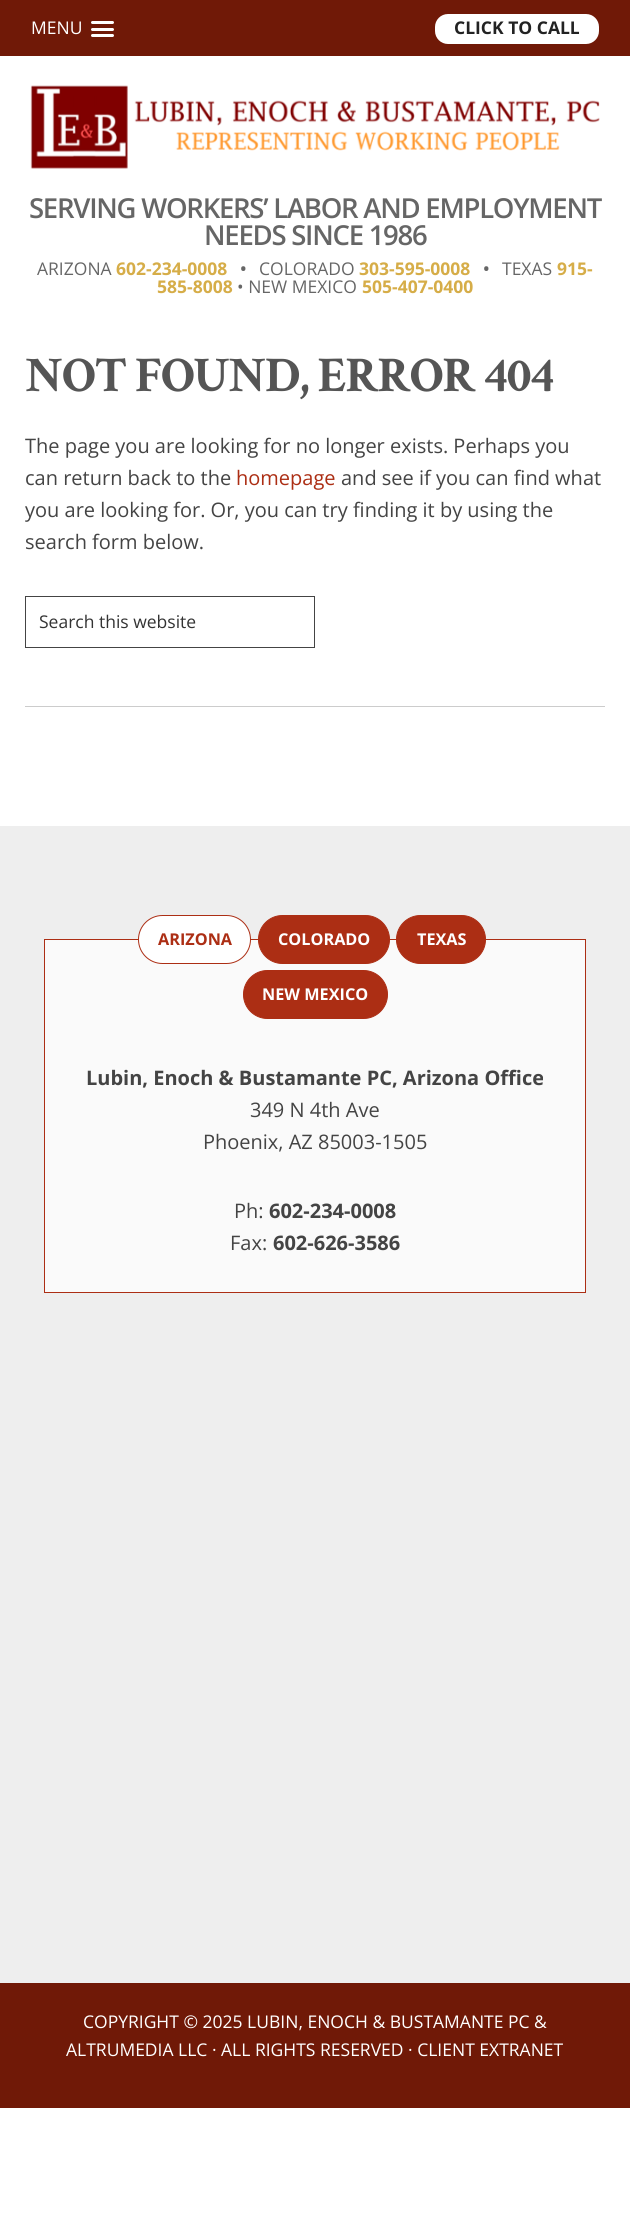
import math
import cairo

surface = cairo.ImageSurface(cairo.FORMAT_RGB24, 630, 2220)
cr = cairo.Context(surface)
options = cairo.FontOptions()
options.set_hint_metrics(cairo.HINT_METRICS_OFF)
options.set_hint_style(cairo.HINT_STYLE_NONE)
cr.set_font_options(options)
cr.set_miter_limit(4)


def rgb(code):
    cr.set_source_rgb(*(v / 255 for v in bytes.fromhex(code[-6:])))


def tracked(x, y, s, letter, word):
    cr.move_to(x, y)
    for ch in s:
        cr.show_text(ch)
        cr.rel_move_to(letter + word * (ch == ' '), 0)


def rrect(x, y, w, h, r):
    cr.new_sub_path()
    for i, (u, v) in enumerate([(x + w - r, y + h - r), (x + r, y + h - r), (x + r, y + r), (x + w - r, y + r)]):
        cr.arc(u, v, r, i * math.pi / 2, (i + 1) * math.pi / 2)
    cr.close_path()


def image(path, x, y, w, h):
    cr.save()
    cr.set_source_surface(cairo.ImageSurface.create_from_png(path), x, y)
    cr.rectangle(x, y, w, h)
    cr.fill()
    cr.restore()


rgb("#ffffff")
cr.paint()
rgb("#701907")
cr.rectangle(0, 0, 630, 56)
cr.fill()
rgb("#ffffff")
rrect(91, 21, 23, 3, 1.5)
cr.fill()
rrect(91, 28, 23, 3, 1.5)
cr.fill()
rrect(91, 34, 23, 3, 1.5)
cr.fill()
rrect(435, 14, 164, 30, 13)
cr.fill()
image("img/1.png", 30, 85, 570, 84)
rgb("#cccccc")
cr.rectangle(25, 706, 580, 1)
cr.fill()
cr.rectangle(25.5, 596.5, 289, 51)
rgb("#444444")
cr.set_line_width(1)
cr.stroke()
rgb("#eeeeee")
cr.rectangle(0, 826, 630, 1157)
cr.fill()
rgb("#fafafa")
cr.rectangle(44.5, 939.5, 541, 353)
cr.fill_preserve()
rgb("#ac2e14")
cr.stroke()
rgb("#ffffff")
rrect(138.5, 915.5, 112, 48, 24)
cr.fill_preserve()
rgb("#ac2e14")
cr.stroke()
rrect(258.5, 915.5, 131, 48, 24)
cr.fill_preserve()
cr.stroke()
rrect(396.5, 915.5, 89, 48, 24)
cr.fill_preserve()
cr.stroke()
rrect(243.5, 970.5, 144, 48, 24)
cr.fill_preserve()
cr.stroke()
rgb("#701907")
cr.rectangle(0, 1983, 630, 125)
cr.fill()
cr.select_font_face("Open Sans")
cr.set_font_size(17.5)
rgb("#ffffff")
cr.move_to(31, 34)
cr.show_text("MENU")
cr.select_font_face("Open Sans", cairo.FONT_SLANT_NORMAL, cairo.FONT_WEIGHT_BOLD)
rgb("#222222")
cr.move_to(454, 34)
cr.show_text("CLICK TO CALL")
cr.select_font_face("Open Sans SemiBold")
cr.set_font_size(27.5)
rgb("#666666")
tracked(29, 218, "SERVING WORKERS’ LABOR AND EMPLOYMENT", -1.25, 0)
tracked(204, 245, "NEEDS SINCE 1986", -1.25, 0)
cr.select_font_face("Open Sans")
cr.set_font_size(17.5)
cr.move_to(37, 275)
cr.show_text("ARIZONA")
cr.select_font_face("Open Sans", cairo.FONT_SLANT_NORMAL, cairo.FONT_WEIGHT_BOLD)
rgb("#d6ad48")
cr.move_to(116, 275)
cr.show_text("602-234-0008")
cr.select_font_face("Open Sans SemiBold")
rgb("#666666")
cr.move_to(240, 275)
cr.show_text("•")
cr.select_font_face("Open Sans")
cr.move_to(259, 275)
cr.show_text("COLORADO")
cr.select_font_face("Open Sans", cairo.FONT_SLANT_NORMAL, cairo.FONT_WEIGHT_BOLD)
rgb("#d6ad48")
cr.move_to(359, 275)
cr.show_text("303-595-0008")
cr.select_font_face("Open Sans SemiBold")
rgb("#666666")
cr.move_to(483, 275)
cr.show_text("•")
cr.select_font_face("Open Sans")
cr.move_to(502, 275)
cr.show_text("TEXAS")
cr.select_font_face("Open Sans", cairo.FONT_SLANT_NORMAL, cairo.FONT_WEIGHT_BOLD)
rgb("#d6ad48")
cr.move_to(557, 275)
cr.show_text("915-")
cr.move_to(157, 293)
cr.show_text("585-8008")
cr.select_font_face("Open Sans")
rgb("#666666")
cr.move_to(237, 293)
cr.show_text("• NEW MEXICO")
cr.select_font_face("Open Sans", cairo.FONT_SLANT_NORMAL, cairo.FONT_WEIGHT_BOLD)
rgb("#d6ad48")
cr.move_to(362, 293)
cr.show_text("505-407-0400")
cr.select_font_face("Crimson Text", cairo.FONT_SLANT_NORMAL, cairo.FONT_WEIGHT_BOLD)
cr.set_font_size(50)
rgb("#555555")
tracked(25, 391, "NOT FOUND, ERROR 404", -1.25, 0)
cr.select_font_face("Open Sans")
cr.set_font_size(20)
rgb("#444444")
cr.move_to(25, 453)
cr.show_text("The page you are looking for no longer exists. Perhaps you")
cr.move_to(25, 485)
cr.show_text("can return back to the")
rgb("#ac2e14")
cr.move_to(236, 485)
cr.show_text("homepage")
rgb("#444444")
for x, y, s in [
    (341, 485, "and see if you can find what"),
    (25, 517, "you are looking for. Or, you can try finding it by using the"),
    (25, 549, "search form below."),
]:
    cr.move_to(x, y)
    cr.show_text(s)
cr.set_font_size(17.5)
rgb("#333333")
cr.move_to(39, 628)
cr.show_text("Search this website")
cr.select_font_face("Open Sans", cairo.FONT_SLANT_NORMAL, cairo.FONT_WEIGHT_BOLD)
cr.set_font_size(16.25)
rgb("#ac2e14")
cr.move_to(158, 945)
cr.show_text("ARIZONA")
rgb("#ffffff")
for x, y, s in [
    (278, 945, "COLORADO"),
    (417, 945, "TEXAS"),
    (262, 1000, "NEW MEXICO"),
]:
    cr.move_to(x, y)
    cr.show_text(s)
cr.set_font_size(20)
rgb("#444444")
cr.move_to(86, 1085)
cr.show_text("Lubin, Enoch & Bustamante PC, Arizona Office")
cr.select_font_face("Open Sans")
for x, y, s in [
    (250, 1117, "349 N 4th Ave"),
    (203, 1149, "Phoenix, AZ 85003-1505"),
    (234, 1218, "Ph:"),
]:
    cr.move_to(x, y)
    cr.show_text(s)
cr.select_font_face("Open Sans", cairo.FONT_SLANT_NORMAL, cairo.FONT_WEIGHT_BOLD)
cr.move_to(269, 1218)
cr.show_text("602-234-0008")
cr.select_font_face("Open Sans")
cr.move_to(230, 1250)
cr.show_text("Fax:")
cr.select_font_face("Open Sans", cairo.FONT_SLANT_NORMAL, cairo.FONT_WEIGHT_BOLD)
cr.move_to(273, 1250)
cr.show_text("602-626-3586")
cr.select_font_face("Open Sans")
cr.set_font_size(17.5)
rgb("#ffffff")
cr.move_to(83, 2028)
cr.show_text("COPYRIGHT © 2025 LUBIN, ENOCH & BUSTAMANTE PC &")
cr.move_to(66, 2056)
cr.show_text("ALTRUMEDIA LLC · ALL RIGHTS RESERVED · CLIENT EXTRANET")
surface.write_to_png("page.png")
